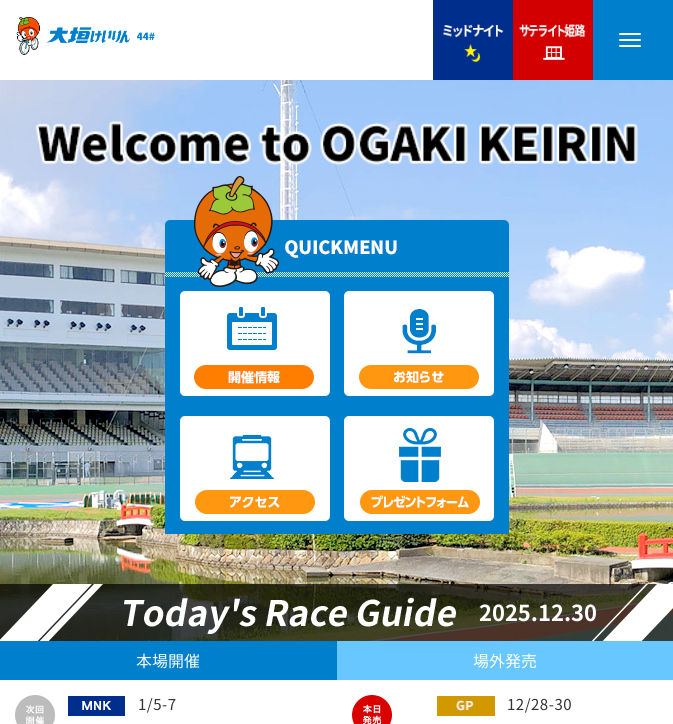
import math
import cairo

surface = cairo.ImageSurface(cairo.FORMAT_RGB24, 673, 724)
cr = cairo.Context(surface)
options = cairo.FontOptions()
options.set_hint_metrics(cairo.HINT_METRICS_OFF)
options.set_hint_style(cairo.HINT_STYLE_NONE)
cr.set_font_options(options)
cr.set_miter_limit(4)


def rgb(code):
    cr.set_source_rgb(*(v / 255 for v in bytes.fromhex(code[-6:])))


def tracked(x, y, s, letter, word):
    cr.move_to(x, y)
    for ch in s:
        cr.show_text(ch)
        cr.rel_move_to(letter + word * (ch == ' '), 0)


def rrect(x, y, w, h, r):
    cr.new_sub_path()
    for i, (u, v) in enumerate([(x + w - r, y + h - r), (x + r, y + h - r), (x + r, y + r), (x + w - r, y + r)]):
        cr.arc(u, v, r, i * math.pi / 2, (i + 1) * math.pi / 2)
    cr.close_path()


def image(path, x, y, w, h):
    cr.save()
    cr.set_source_surface(cairo.ImageSurface.create_from_png(path), x, y)
    cr.rectangle(x, y, w, h)
    cr.fill()
    cr.restore()


rgb("#ffffff")
cr.paint()
image("img/1.png", 0, 80, 673, 561)
image("img/2.png", 16, 17, 139, 38)
rgb("#0080cc")
cr.rectangle(593, 0, 80, 80)
cr.fill()
rgb("#ffffff")
rrect(619, 33, 22, 2, 1)
cr.fill()
rrect(619, 39, 22, 2, 1)
cr.fill()
rrect(619, 45, 22, 2, 1)
cr.fill()
image("img/3.png", 433, 0, 80, 80)
image("img/4.png", 513, 0, 80, 80)
image("img/5.png", 35, 121, 603, 44)
image("img/6.png", 165, 176, 344, 358)
image("img/7.png", 180, 291, 150, 105)
image("img/8.png", 344, 291, 150, 105)
image("img/9.png", 180, 416, 150, 105)
image("img/10.png", 344, 416, 150, 105)
cr.set_source_rgba(0, 0, 0, 0.7)
cr.rectangle(0, 584, 673, 57)
cr.fill()
image("img/11.png", 0, 584, 673, 57)
rgb("#0080cc")
cr.rectangle(0, 641, 337, 39)
cr.fill()
image("img/12.png", 15, 695, 40, 29)
image("img/13.png", 68, 696, 57, 20)
rgb("#68c7ff")
cr.rectangle(337, 641, 336, 39)
cr.fill()
image("img/14.png", 352, 695, 40, 29)
image("img/15.png", 437, 696, 58, 20)
cr.select_font_face("Noto Sans JP", cairo.FONT_SLANT_NORMAL, cairo.FONT_WEIGHT_BOLD)
cr.set_font_size(22)
rgb("#ffffff")
cr.move_to(479, 621)
cr.show_text("2025.12.30")
cr.select_font_face("Noto Sans JP")
cr.set_font_size(16)
cr.move_to(136, 667)
cr.show_text("本場開催")
cr.set_font_size(15)
rgb("#333333")
tracked(138, 710, "1/5-7", 0.5, 0)
cr.set_font_size(16)
rgb("#ffffff")
cr.move_to(473, 667)
cr.show_text("場外発売")
cr.set_font_size(15)
rgb("#333333")
tracked(507, 710, "12/28-30", 0.5, 0)
surface.write_to_png("page.png")
